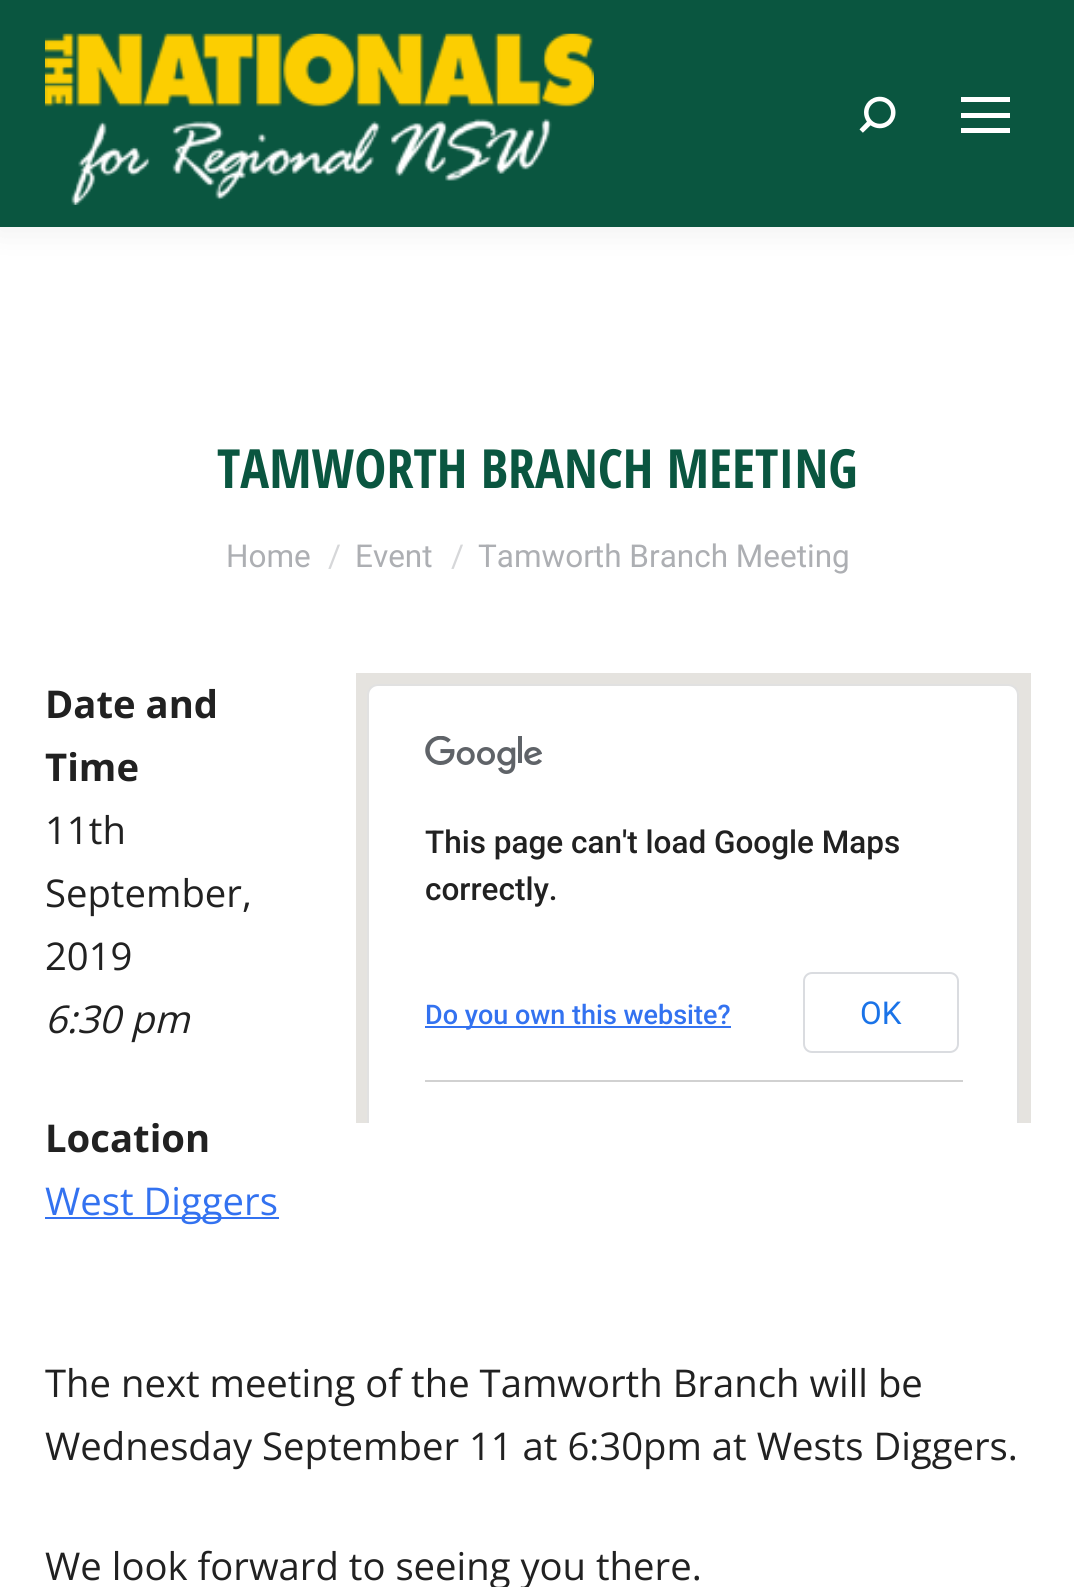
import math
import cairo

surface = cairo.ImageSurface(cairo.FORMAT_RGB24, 1074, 1587)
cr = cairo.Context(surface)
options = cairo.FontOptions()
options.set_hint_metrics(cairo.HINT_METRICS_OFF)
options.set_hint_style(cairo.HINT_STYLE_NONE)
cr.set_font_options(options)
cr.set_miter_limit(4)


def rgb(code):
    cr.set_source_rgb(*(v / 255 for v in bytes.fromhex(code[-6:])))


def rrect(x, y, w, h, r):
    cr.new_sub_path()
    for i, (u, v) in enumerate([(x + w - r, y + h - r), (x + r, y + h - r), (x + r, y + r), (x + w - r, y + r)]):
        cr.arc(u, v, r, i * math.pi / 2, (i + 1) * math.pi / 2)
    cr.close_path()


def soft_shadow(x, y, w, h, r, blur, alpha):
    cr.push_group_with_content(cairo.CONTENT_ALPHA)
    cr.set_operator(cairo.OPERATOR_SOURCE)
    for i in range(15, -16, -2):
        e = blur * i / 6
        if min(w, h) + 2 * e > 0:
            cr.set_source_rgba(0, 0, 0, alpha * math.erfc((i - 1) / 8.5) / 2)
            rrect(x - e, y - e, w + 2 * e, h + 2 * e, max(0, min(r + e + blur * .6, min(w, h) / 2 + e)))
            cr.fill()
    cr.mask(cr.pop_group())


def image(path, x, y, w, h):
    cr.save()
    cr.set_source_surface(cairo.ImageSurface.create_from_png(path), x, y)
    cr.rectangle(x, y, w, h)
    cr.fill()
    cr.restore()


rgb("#ffffff")
cr.paint()
rgb("#000000")
soft_shadow(-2, -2, 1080, 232, 0, 17, 0.07)
rgb("#0a5640")
cr.rectangle(0, 0, 1074, 227)
cr.fill()
image("img/1.png", 45, 33, 549, 172)
image("img/2.png", 859, 96, 37, 37)
for x, y, w, h, color in [
    (961, 97, 49, 5, "#ffffff"),
    (961, 113, 49, 5, "#ffffff"),
    (961, 128, 49, 5, "#ffffff"),
    (356, 673, 675, 450, "#e5e3df"),
]:
    rgb(color)
    cr.rectangle(x, y, w, h)
    cr.fill()
rgb("#ffffff")
cr.new_path()
cr.move_to(378, 684)
cr.line_to(1008, 684)
cr.curve_to(1014, 684, 1019, 689, 1019, 695)
cr.line_to(1019, 1123)
cr.line_to(367, 1123)
cr.line_to(367, 695)
cr.curve_to(367, 689, 372, 684, 378, 684)
cr.close_path()
cr.fill()
cr.save()
cr.rectangle(356, 673, 675, 450)
cr.clip()
rrect(368, 685, 650, 489, 10)
cr.set_source_rgba(0, 0, 0, 0.12)
cr.stroke()
cr.restore()
image("img/3.png", 425, 736, 117, 38)
rgb("#3372f0")
cr.rectangle(425, 1026, 306, 2)
cr.fill()
rgb("#d1d1d1")
cr.rectangle(425, 1080, 538, 2)
cr.fill()
rrect(804, 973, 154, 79, 8)
rgb("#dadce0")
cr.stroke()
rgb("#3372f0")
cr.rectangle(45, 1217, 234, 2)
cr.fill()
cr.select_font_face("Open Sans Condensed", cairo.FONT_SLANT_NORMAL, cairo.FONT_WEIGHT_BOLD)
cr.set_font_size(54)
rgb("#0a5640")
cr.move_to(217, 488)
cr.show_text("TAMWORTH BRANCH MEETING")
cr.select_font_face("Roboto")
cr.set_font_size(31.5)
rgb("#adafb3")
cr.move_to(226, 567)
cr.show_text("Home")
rgb("#d6d7d9")
cr.move_to(328, 567)
cr.show_text("/")
rgb("#adafb3")
cr.move_to(355, 567)
cr.show_text("Event")
rgb("#d6d7d9")
cr.move_to(451, 567)
cr.show_text("/")
rgb("#adafb3")
cr.move_to(478, 567)
cr.show_text("Tamworth Branch Meeting")
cr.select_font_face("Open Sans", cairo.FONT_SLANT_NORMAL, cairo.FONT_WEIGHT_BOLD)
cr.set_font_size(38.25)
rgb("#212121")
cr.move_to(45, 718)
cr.show_text("Date and")
cr.move_to(45, 781)
cr.show_text("Time")
cr.select_font_face("Open Sans")
for x, y, s in [
    (45, 844, "11th"),
    (45, 907, "September,"),
    (45, 970, "2019"),
]:
    cr.move_to(x, y)
    cr.show_text(s)
cr.select_font_face("Open Sans", cairo.FONT_SLANT_ITALIC)
cr.move_to(45, 1033)
cr.show_text("6:30 pm")
cr.select_font_face("Roboto Medium")
cr.set_font_size(31.5)
cr.move_to(425, 853)
cr.show_text("This page can't load Google Maps")
cr.move_to(425, 900)
cr.show_text("correctly.")
cr.set_font_size(27)
rgb("#3372f0")
cr.move_to(425, 1024)
cr.show_text("Do you own this website?")
cr.select_font_face("Roboto")
cr.set_font_size(31.5)
rgb("#1a73e8")
cr.move_to(860, 1024)
cr.show_text("OK")
cr.select_font_face("Open Sans", cairo.FONT_SLANT_NORMAL, cairo.FONT_WEIGHT_BOLD)
cr.set_font_size(38.25)
rgb("#212121")
cr.move_to(45, 1152)
cr.show_text("Location")
cr.select_font_face("Open Sans")
rgb("#3372f0")
cr.move_to(45, 1215)
cr.show_text("West Diggers")
rgb("#212121")
for x, y, s in [
    (45, 1397, "The next meeting of the Tamworth Branch will be"),
    (45, 1460, "Wednesday September 11 at 6:30pm at Wests Diggers."),
    (45, 1580, "We look forward to seeing you there."),
]:
    cr.move_to(x, y)
    cr.show_text(s)
surface.write_to_png("page.png")
